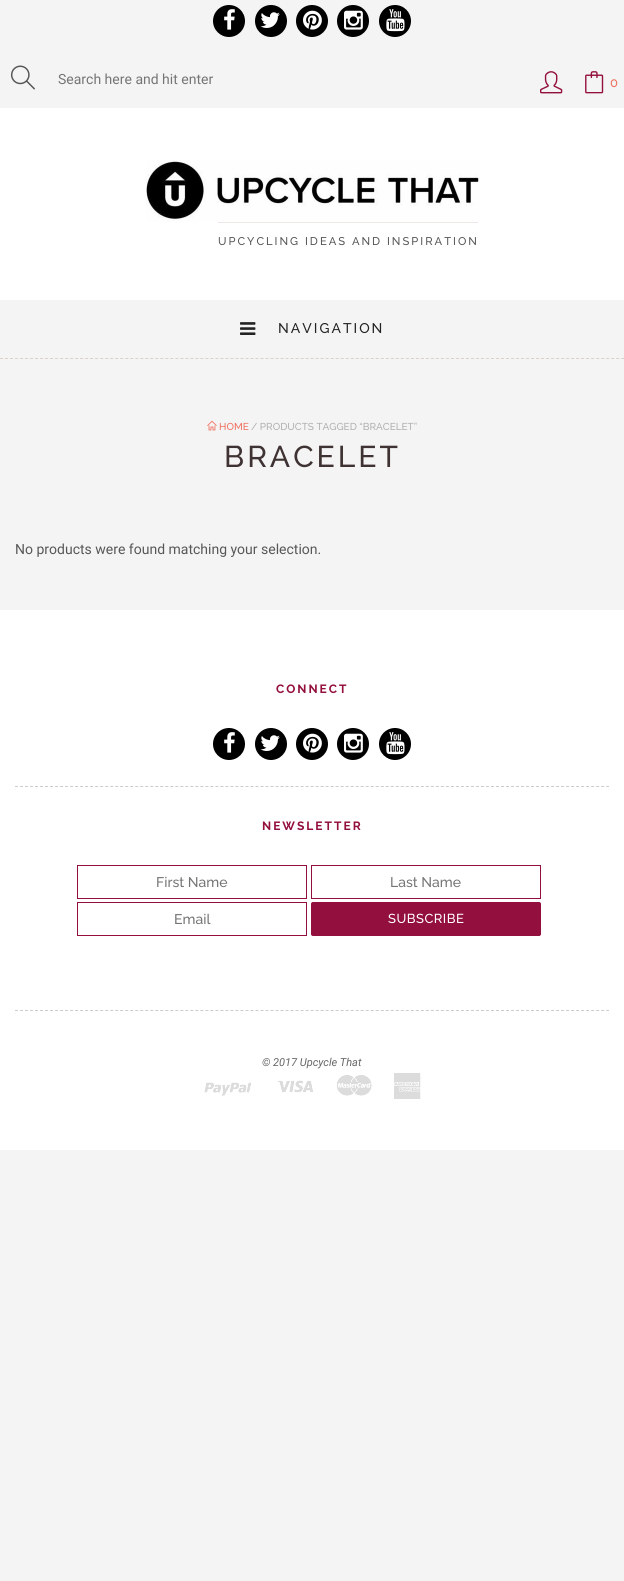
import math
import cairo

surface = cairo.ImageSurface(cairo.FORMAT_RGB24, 624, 1581)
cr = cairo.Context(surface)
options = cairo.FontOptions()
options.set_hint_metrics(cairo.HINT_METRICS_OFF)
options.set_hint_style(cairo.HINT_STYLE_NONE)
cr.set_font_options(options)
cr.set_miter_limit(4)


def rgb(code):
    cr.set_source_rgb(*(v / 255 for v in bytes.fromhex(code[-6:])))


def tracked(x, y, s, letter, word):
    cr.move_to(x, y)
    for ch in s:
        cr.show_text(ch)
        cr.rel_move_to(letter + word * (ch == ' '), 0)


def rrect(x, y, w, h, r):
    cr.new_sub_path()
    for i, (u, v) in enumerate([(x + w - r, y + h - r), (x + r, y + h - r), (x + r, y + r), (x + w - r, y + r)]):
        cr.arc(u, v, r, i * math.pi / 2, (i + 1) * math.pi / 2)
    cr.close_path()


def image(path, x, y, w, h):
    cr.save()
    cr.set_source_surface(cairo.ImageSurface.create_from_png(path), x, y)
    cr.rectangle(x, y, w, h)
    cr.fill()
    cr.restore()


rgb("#f4f4f4")
cr.paint()
rgb("#000000")
cr.arc(229, 21, 16, 0, 2 * math.pi)
cr.fill()
image("img/1.png", 224, 9, 11, 21)
cr.arc(271, 21, 16, 0, 2 * math.pi)
cr.fill()
image("img/2.png", 260, 12, 20, 16)
cr.arc(312, 21, 16, 0, 2 * math.pi)
cr.fill()
image("img/3.png", 303, 10, 19, 20)
cr.arc(353, 21, 16, 0, 2 * math.pi)
cr.fill()
image("img/4.png", 344, 10, 19, 20)
cr.arc(395, 21, 16, 0, 2 * math.pi)
cr.fill()
image("img/5.png", 386, 9, 19, 23)
rgb("#ffffff")
cr.rectangle(0, 108, 624, 192)
cr.fill()
image("img/6.png", 10, 65, 25, 25)
image("img/7.png", 540, 71, 23, 23)
image("img/8.png", 585, 71, 19, 23)
image("img/9.png", 146, 160, 334, 62)
rgb("#f2e7e7")
cr.rectangle(218, 222, 260, 1)
cr.fill()
cr.new_path()
cr.move_to(0, 358.5)
cr.line_to(624, 358.5)
rgb("#dcd0c7")
cr.set_line_width(1)
cr.set_dash([3, 2.01])
cr.stroke()
image("img/10.png", 240, 322, 16, 13)
image("img/11.png", 207, 420, 10, 11)
rgb("#ffffff")
cr.rectangle(0, 610, 624, 540)
cr.fill()
cr.new_path()
cr.move_to(15, 786.5)
cr.line_to(609, 786.5)
rgb("#cccccc")
cr.stroke()
rgb("#000000")
cr.arc(229, 744, 16, 0, 2 * math.pi)
cr.fill()
image("img/1.png", 224, 732, 11, 21)
cr.arc(271, 744, 16, 0, 2 * math.pi)
cr.fill()
image("img/2.png", 260, 735, 20, 16)
cr.arc(312, 744, 16, 0, 2 * math.pi)
cr.fill()
image("img/3.png", 303, 733, 19, 20)
cr.arc(353, 744, 16, 0, 2 * math.pi)
cr.fill()
image("img/4.png", 344, 733, 19, 20)
cr.arc(395, 744, 16, 0, 2 * math.pi)
cr.fill()
image("img/5.png", 386, 732, 19, 23)
cr.rectangle(77.5, 865.5, 229, 33)
rgb("#930f3d")
cr.set_dash([])
cr.stroke()
cr.rectangle(311.5, 865.5, 229, 33)
cr.stroke()
cr.rectangle(77.5, 902.5, 229, 33)
cr.stroke()
rrect(311.5, 902.5, 229, 33, 1.5)
cr.fill_preserve()
cr.stroke()
cr.new_path()
cr.move_to(15, 1010.5)
cr.line_to(609, 1010.5)
rgb("#cccccc")
cr.set_dash([3, 2.01])
cr.stroke()
image("img/12.png", 204, 1073, 217, 26)
cr.select_font_face("Roboto")
cr.set_font_size(14)
rgb("#757575")
cr.move_to(58, 84)
cr.show_text("Search here and hit enter")
cr.select_font_face("Raleway Medium")
cr.set_font_size(13)
rgb("#ef705f")
cr.move_to(610, 87)
cr.show_text("0")
cr.set_font_size(11.2)
rgb("#585757")
tracked(218, 245, "UPCYCLING IDEAS AND INSPIRATION", 2, 0)
cr.set_font_size(14)
rgb("#232323")
tracked(278, 333, "NAVIGATION", 2, 0)
cr.set_font_size(10)
rgb("#ef705f")
cr.move_to(219, 430)
cr.show_text("HOME")
rgb("#b1b1b1")
cr.move_to(251, 430)
cr.show_text("/ PRODUCTS TAGGED “BRACELET”")
cr.set_font_size(30)
rgb("#3f3232")
tracked(224, 467, "BRACELET", 3, 0)
cr.select_font_face("Roboto")
cr.set_font_size(14)
rgb("#585757")
cr.move_to(15, 554)
cr.show_text("No products were found matching your selection.")
cr.select_font_face("Raleway", cairo.FONT_SLANT_NORMAL, cairo.FONT_WEIGHT_BOLD)
cr.set_font_size(12)
rgb("#930f3d")
tracked(276, 693, "CONNECT", 2, 0)
tracked(262, 830, "NEWSLETTER", 2, 0)
cr.select_font_face("Raleway Medium")
cr.set_font_size(14)
rgb("#757575")
for x, y, s in [
    (156, 887, "First Name"),
    (390, 887, "Last Name"),
    (174, 924, "Email"),
]:
    cr.move_to(x, y)
    cr.show_text(s)
cr.set_font_size(13)
rgb("#ffffff")
tracked(388, 923, "SUBSCRIBE", 0.5, 0)
cr.select_font_face("Roboto", cairo.FONT_SLANT_ITALIC)
cr.set_font_size(11)
rgb("#666666")
cr.move_to(262, 1066)
cr.show_text("© 2017 Upcycle That")
surface.write_to_png("page.png")
